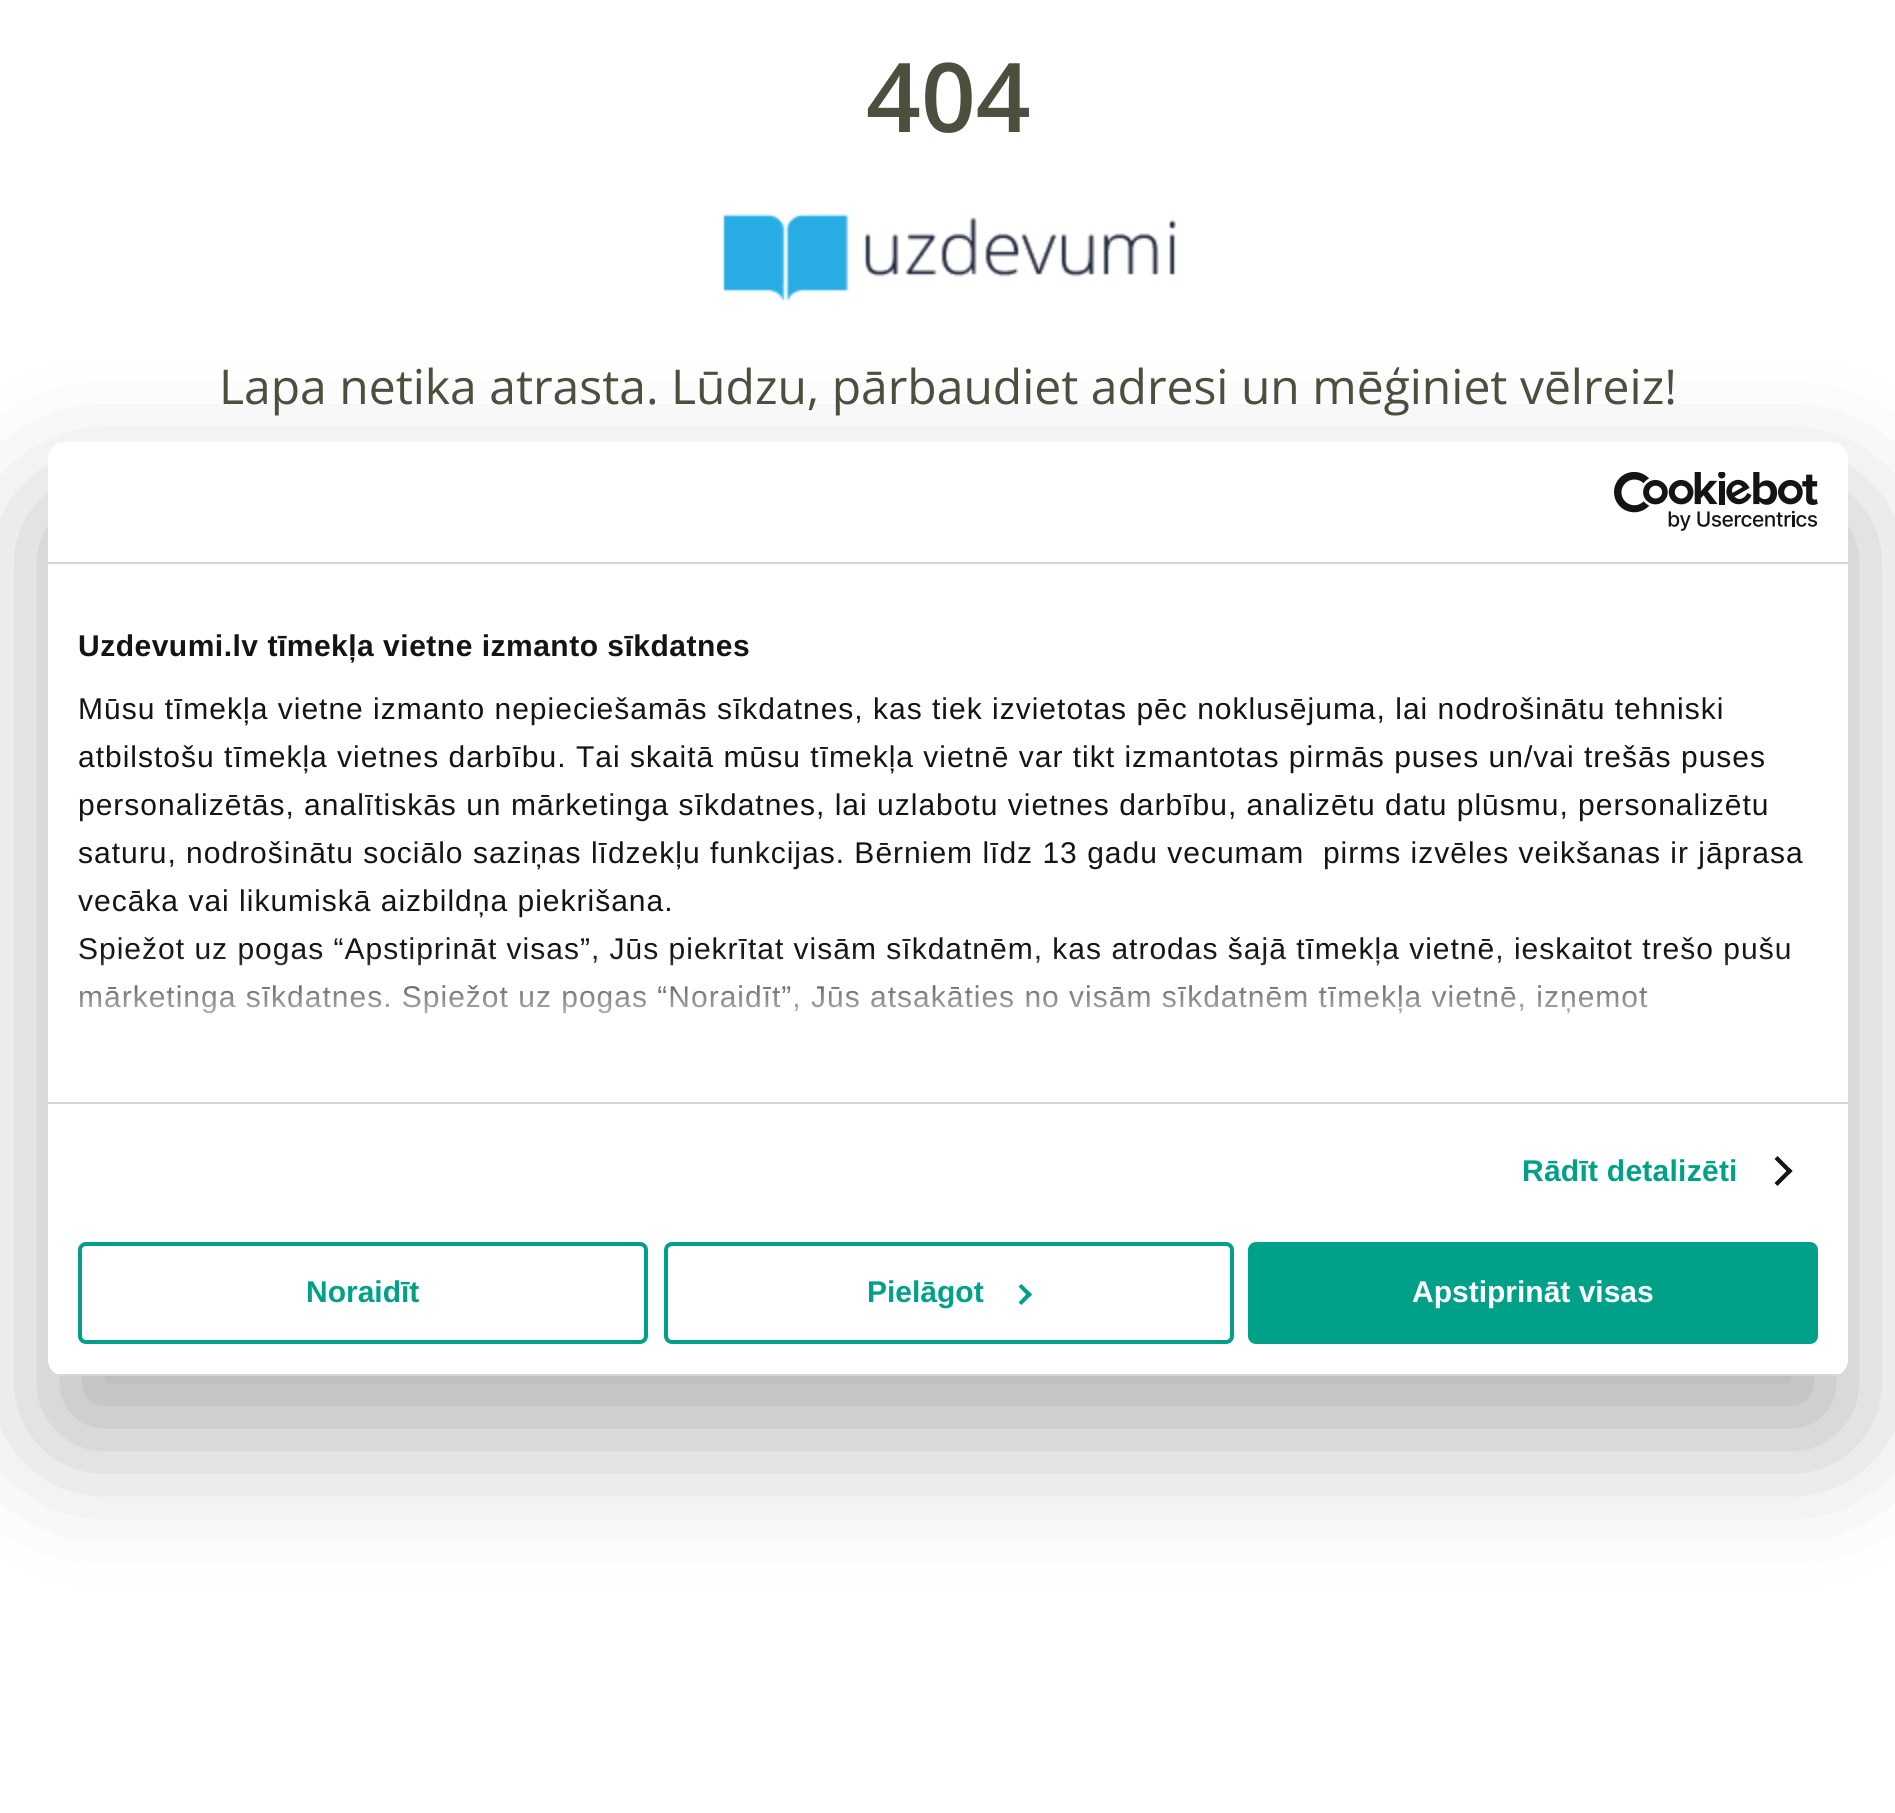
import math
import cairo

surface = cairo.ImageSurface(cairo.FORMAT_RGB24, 1895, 1813)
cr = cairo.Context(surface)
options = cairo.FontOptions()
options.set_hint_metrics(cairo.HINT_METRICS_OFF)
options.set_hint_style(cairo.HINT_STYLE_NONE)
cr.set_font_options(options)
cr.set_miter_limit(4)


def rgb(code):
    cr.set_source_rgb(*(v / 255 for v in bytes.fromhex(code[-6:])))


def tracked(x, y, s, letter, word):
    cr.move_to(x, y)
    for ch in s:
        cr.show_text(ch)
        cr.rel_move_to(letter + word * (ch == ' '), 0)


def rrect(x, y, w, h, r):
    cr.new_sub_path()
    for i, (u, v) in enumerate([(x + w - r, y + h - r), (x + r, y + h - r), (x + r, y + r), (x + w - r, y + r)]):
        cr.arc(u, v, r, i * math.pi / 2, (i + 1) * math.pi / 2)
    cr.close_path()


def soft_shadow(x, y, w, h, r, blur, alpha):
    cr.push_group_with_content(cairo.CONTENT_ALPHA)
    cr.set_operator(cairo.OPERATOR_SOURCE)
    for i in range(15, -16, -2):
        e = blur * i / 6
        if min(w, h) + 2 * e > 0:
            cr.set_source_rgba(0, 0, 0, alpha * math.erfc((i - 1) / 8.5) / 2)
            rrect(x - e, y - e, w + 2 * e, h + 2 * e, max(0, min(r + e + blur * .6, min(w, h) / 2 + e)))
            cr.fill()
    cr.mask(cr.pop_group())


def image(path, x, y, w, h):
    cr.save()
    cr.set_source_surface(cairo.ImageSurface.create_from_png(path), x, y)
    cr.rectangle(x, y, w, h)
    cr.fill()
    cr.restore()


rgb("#ffffff")
cr.paint()
image("img/1.png", 723, 213, 453, 88)
rgb("#000000")
soft_shadow(48, 506, 1800, 934, 16, 68, 0.3)
rgb("#ffffff")
rrect(48, 442, 1800, 934, 16)
cr.fill()
rgb("#d6d6d6")
cr.rectangle(48, 562, 1800, 2)
cr.fill()
image("img/2.png", 1614, 472, 204, 59)
cr.rectangle(48, 1102, 1800, 2)
cr.fill()
rgb("#141414")
cr.new_path()
cr.move_to(1777.5, 1156)
cr.line_to(1792.5, 1171)
cr.line_to(1789.5, 1174)
cr.line_to(1774.5, 1159)
cr.close_path()
cr.fill()
cr.new_path()
cr.move_to(1789.5, 1168)
cr.line_to(1792.5, 1171)
cr.line_to(1777.5, 1186)
cr.line_to(1774.5, 1183)
cr.close_path()
cr.fill()
cr.save()
rrect(48, 442, 1800, 934, 16)
cr.clip()
rgb("#d6d6d6")
cr.rectangle(48, 1374, 1800, 2)
cr.fill()
cr.restore()
rrect(80, 1244, 566, 98, 6)
rgb("#00a188")
cr.set_line_width(4)
cr.stroke()
rrect(666, 1244, 566, 98, 6)
cr.stroke()
cr.new_path()
cr.move_to(1021.5, 1284)
cr.line_to(1032, 1294.5)
cr.line_to(1029, 1297.5)
cr.line_to(1018.5, 1286.5)
cr.close_path()
cr.fill()
cr.new_path()
cr.move_to(1029, 1291.5)
cr.line_to(1032, 1294.5)
cr.line_to(1021.5, 1305)
cr.line_to(1018.5, 1302.5)
cr.close_path()
cr.fill()
rrect(1250, 1244, 566, 98, 6)
cr.fill_preserve()
cr.stroke()
cr.select_font_face("Open Sans SemiBold")
cr.set_font_size(96)
rgb("#4e4e3f")
cr.move_to(866, 132)
cr.show_text("404")
cr.select_font_face("Open Sans")
cr.set_font_size(48)
cr.move_to(219, 404)
cr.show_text("Lapa netika atrasta. Lūdzu, pārbaudiet adresi un mēģiniet vēlreiz!")
cr.select_font_face("Liberation Sans", cairo.FONT_SLANT_NORMAL, cairo.FONT_WEIGHT_BOLD)
cr.set_font_size(30)
rgb("#141414")
tracked(78, 656, "Uzdevumi.lv tīmekļa vietne izmanto sīkdatnes", 0.5, 0)
cr.select_font_face("Liberation Sans")
for x, y, s in [
    (78, 719, "Mūsu tīmekļa vietne izmanto nepieciešamās sīkdatnes, kas tiek izvietotas pēc noklusējuma, lai nodrošinātu tehniski"),
    (78, 767, "atbilstošu tīmekļa vietnes darbību. Tai skaitā mūsu tīmekļa vietnē var tikt izmantotas pirmās puses un/vai trešās puses"),
    (78, 815, "personalizētās, analītiskās un mārketinga sīkdatnes, lai uzlabotu vietnes darbību, analizētu datu plūsmu, personalizētu"),
    (78, 863, "saturu, nodrošinātu sociālo saziņas līdzekļu funkcijas. Bērniem līdz 13 gadu vecumam  pirms izvēles veikšanas ir jāprasa"),
    (78, 911, "vecāka vai likumiskā aizbildņa piekrišana."),
    (78, 959, "Spiežot uz pogas “Apstiprināt visas”, Jūs piekrītat visām sīkdatnēm, kas atrodas šajā tīmekļa vietnē, ieskaitot trešo pušu"),
    (78, 1007, "mārketinga sīkdatnes. Spiežot uz pogas “Noraidīt”, Jūs atsakāties no visām sīkdatnēm tīmekļa vietnē, izņemot"),
]:
    tracked(x, y, s, 1, 0)
gradient = cairo.LinearGradient(935, 1101, 935, 951)
gradient.add_color_stop_rgba(0, 1, 1, 1, 1)
gradient.add_color_stop_rgba(0.5, 1, 1, 1, 0.8)
gradient.add_color_stop_rgba(1, 1, 1, 1, 0)
cr.set_source(gradient)
cr.rectangle(79, 953, 1711, 61)
cr.fill()
cr.select_font_face("Liberation Sans", cairo.FONT_SLANT_NORMAL, cairo.FONT_WEIGHT_BOLD)
rgb("#00a188")
tracked(1522, 1181, "Rādīt detalizēti", 0.25, 0)
cr.move_to(306, 1302)
cr.show_text("Noraidīt")
cr.move_to(867, 1302)
cr.show_text("Pielāgot")
rgb("#ffffff")
cr.move_to(1412, 1302)
cr.show_text("Apstiprināt visas")
surface.write_to_png("page.png")
